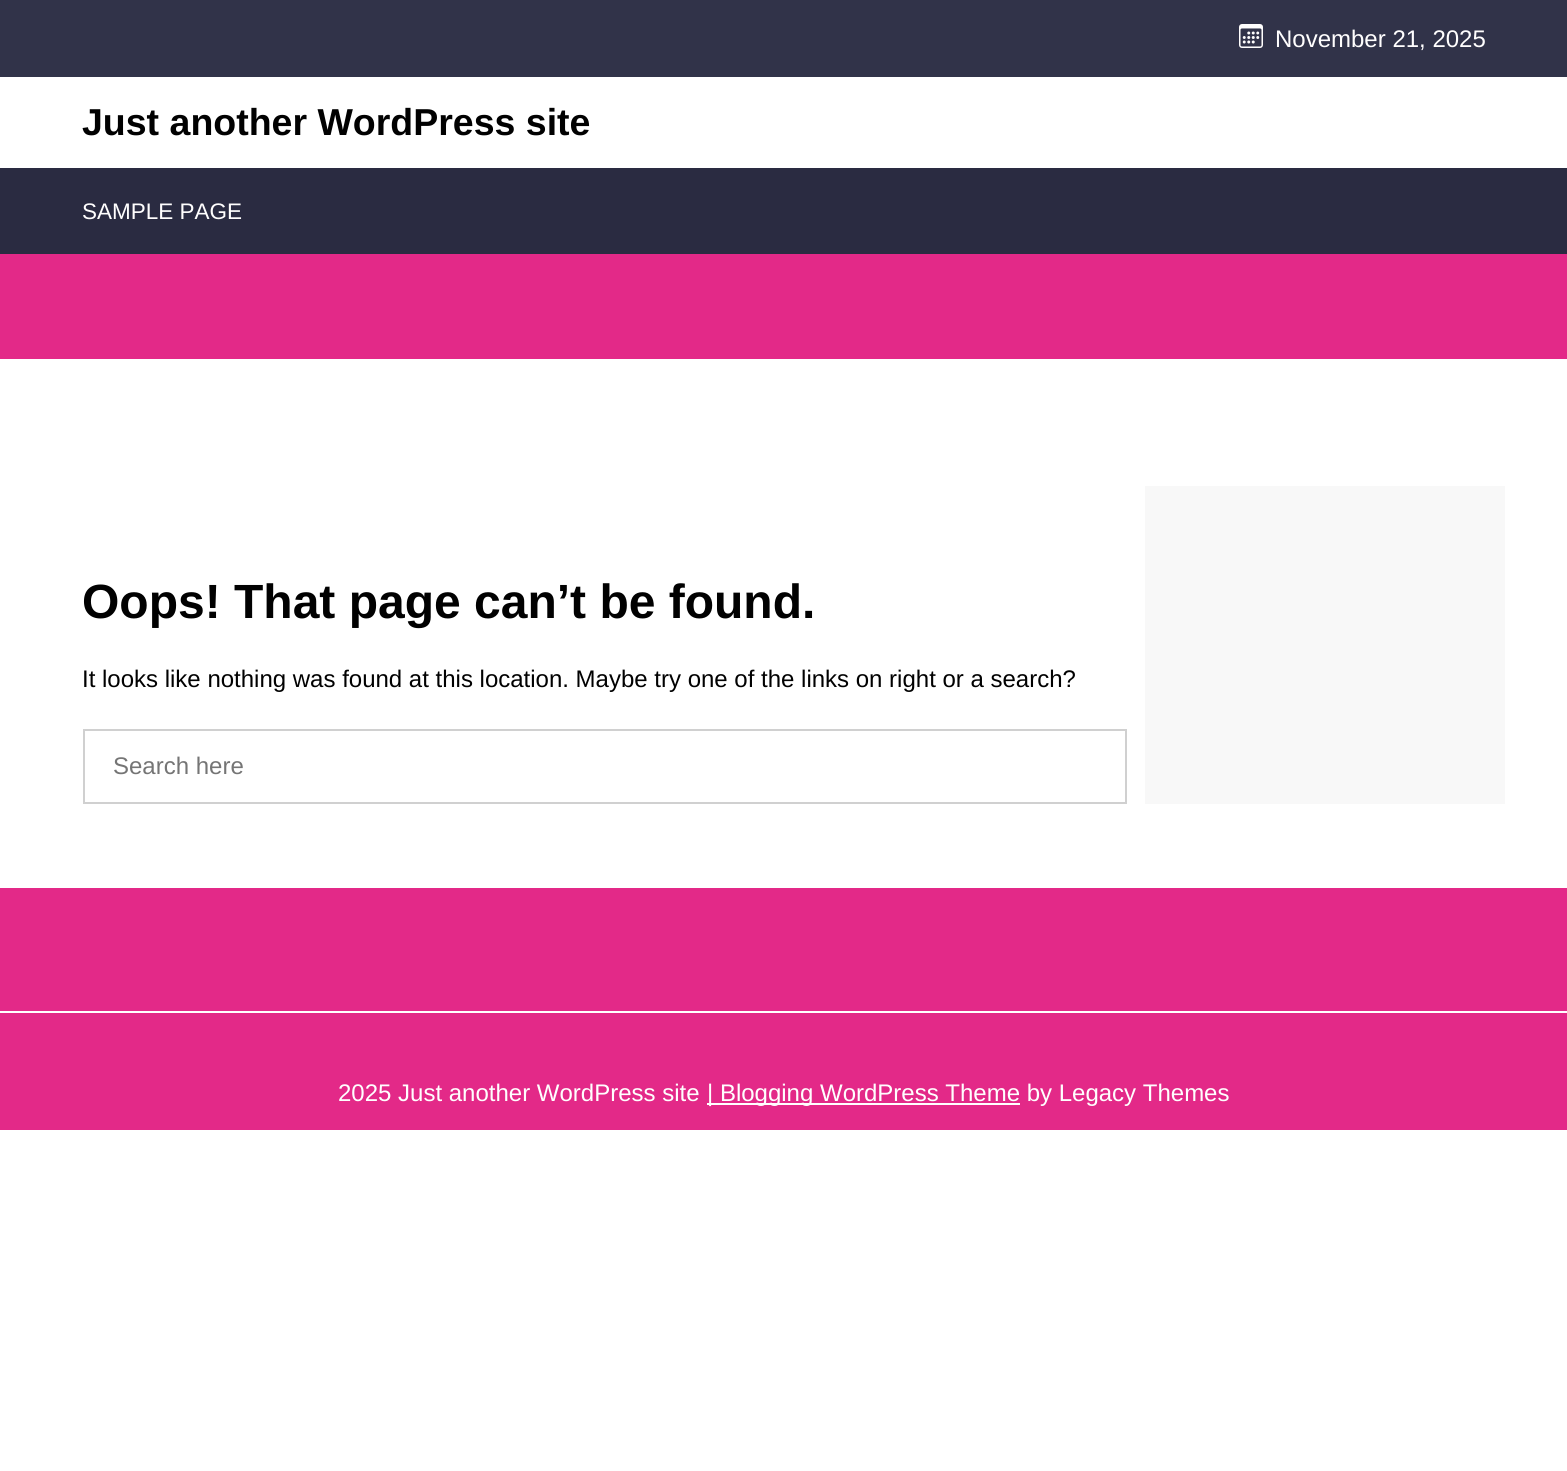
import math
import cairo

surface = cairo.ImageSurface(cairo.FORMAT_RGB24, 1567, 1471)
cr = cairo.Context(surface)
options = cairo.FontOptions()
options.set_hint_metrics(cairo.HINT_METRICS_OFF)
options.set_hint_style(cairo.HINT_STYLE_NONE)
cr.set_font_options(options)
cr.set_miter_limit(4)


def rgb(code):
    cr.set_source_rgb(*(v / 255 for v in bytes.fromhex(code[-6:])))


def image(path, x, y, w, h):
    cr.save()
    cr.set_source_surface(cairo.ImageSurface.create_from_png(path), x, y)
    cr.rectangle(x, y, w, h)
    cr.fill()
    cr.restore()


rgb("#ffffff")
cr.paint()
rgb("#313349")
cr.rectangle(0, 0, 1567, 77)
cr.fill()
image("img/1.png", 1239, 24, 24, 24)
rgb("#2a2b41")
cr.rectangle(0, 168, 1567, 86)
cr.fill()
rgb("#e32988")
cr.rectangle(0, 254, 1567, 105)
cr.fill()
cr.rectangle(84, 730, 1042, 73)
rgb("#d0d0d0")
cr.stroke()
for x, y, w, h, color in [
    (1145, 486, 360, 318, "#f8f8f8"),
    (0, 888, 1567, 242, "#e32988"),
    (0, 1011, 1567, 2, "#ffffff"),
    (707, 1103, 313, 2, "#ffffff"),
]:
    rgb(color)
    cr.rectangle(x, y, w, h)
    cr.fill()
cr.select_font_face("Liberation Sans")
cr.set_font_size(24)
rgb("#fffefe")
cr.move_to(1275, 47)
cr.show_text("November 21, 2025")
cr.select_font_face("Liberation Sans", cairo.FONT_SLANT_NORMAL, cairo.FONT_WEIGHT_BOLD)
cr.set_font_size(37.5)
rgb("#010101")
cr.move_to(82, 135)
cr.show_text("Just another WordPress site")
cr.select_font_face("Liberation Sans")
cr.set_font_size(22.5)
rgb("#fffefe")
cr.move_to(82, 219)
cr.show_text("SAMPLE PAGE")
cr.select_font_face("Liberation Sans", cairo.FONT_SLANT_NORMAL, cairo.FONT_WEIGHT_BOLD)
cr.set_font_size(48)
rgb("#010101")
cr.move_to(82, 618)
cr.show_text("Oops! That page can’t be found.")
cr.select_font_face("Liberation Sans")
cr.set_font_size(24)
cr.move_to(82, 687)
cr.show_text("It looks like nothing was found at this location. Maybe try one of the links on right or a search?")
rgb("#757575")
cr.move_to(113, 774)
cr.show_text("Search here")
rgb("#fffefe")
cr.move_to(338, 1101)
cr.show_text("2025 Just another WordPress site")
cr.move_to(707, 1101)
cr.show_text("| Blogging WordPress Theme by Legacy Themes")
surface.write_to_png("page.png")
